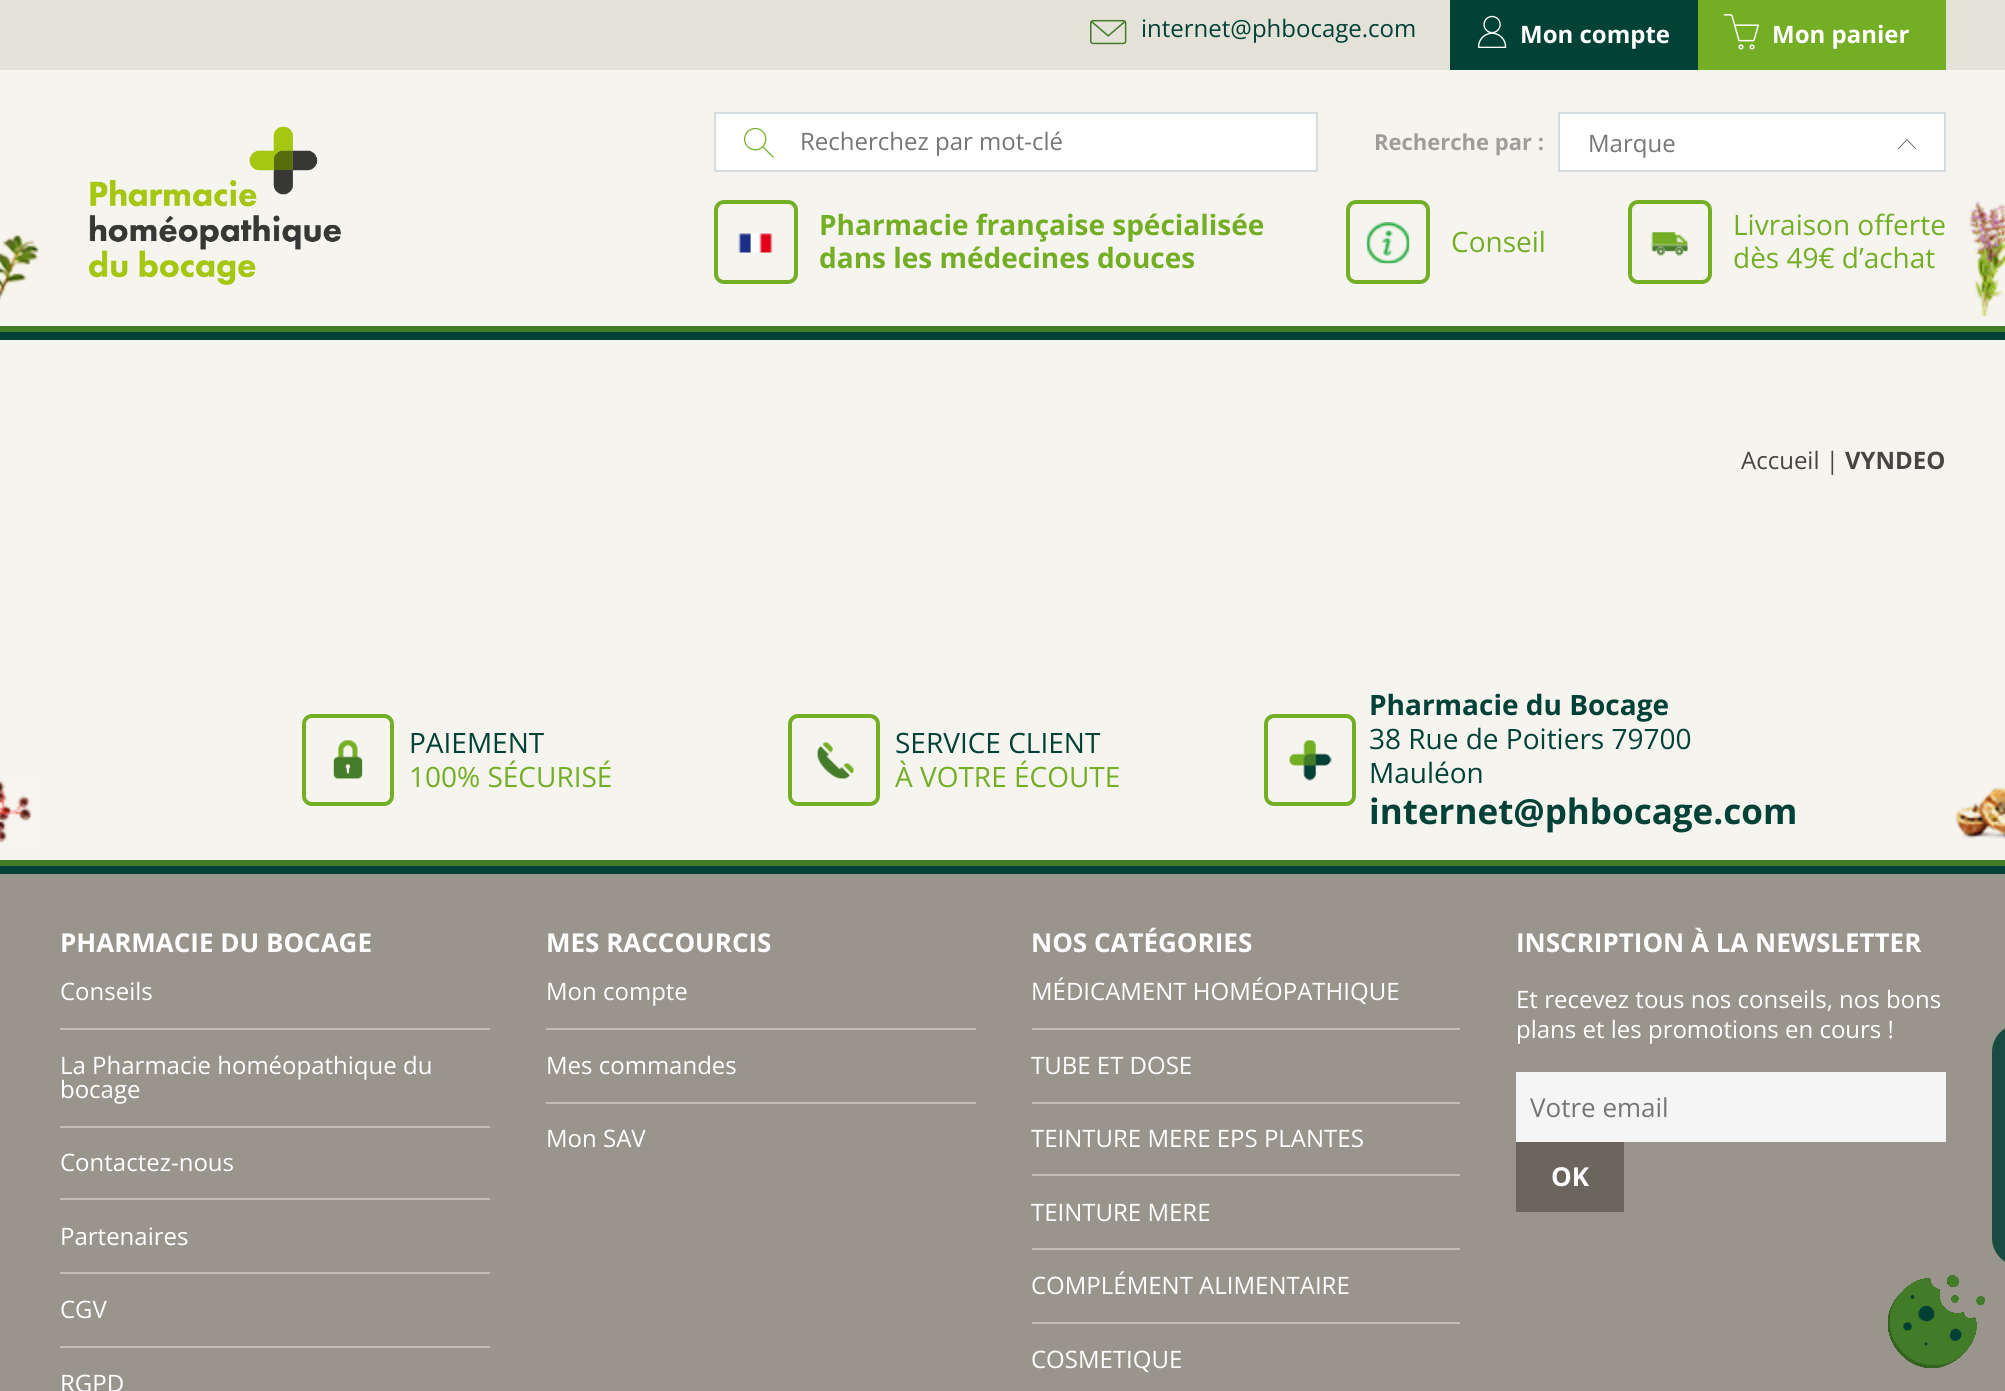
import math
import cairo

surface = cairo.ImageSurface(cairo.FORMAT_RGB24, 2005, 1391)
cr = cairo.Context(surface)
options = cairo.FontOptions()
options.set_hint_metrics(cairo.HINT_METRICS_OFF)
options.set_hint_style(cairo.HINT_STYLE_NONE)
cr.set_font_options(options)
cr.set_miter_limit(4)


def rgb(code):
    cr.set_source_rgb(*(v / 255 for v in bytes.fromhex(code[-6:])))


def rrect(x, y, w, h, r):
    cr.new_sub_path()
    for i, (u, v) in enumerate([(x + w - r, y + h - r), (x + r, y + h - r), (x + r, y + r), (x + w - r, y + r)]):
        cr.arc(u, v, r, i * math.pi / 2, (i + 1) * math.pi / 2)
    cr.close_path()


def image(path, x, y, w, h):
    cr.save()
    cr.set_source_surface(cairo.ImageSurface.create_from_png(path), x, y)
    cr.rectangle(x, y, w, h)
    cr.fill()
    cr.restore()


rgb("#f6f4ee")
cr.paint()
rgb("#e4e1d9")
cr.rectangle(0, 0, 2005, 70)
cr.fill()
image("img/1.png", 1090, 19, 37, 26)
rgb("#014136")
cr.rectangle(1450, 0, 248, 70)
cr.fill()
image("img/2.png", 1478, 15, 29, 33)
rgb("#73ae25")
cr.rectangle(1698, 0, 248, 70)
cr.fill()
image("img/3.png", 1723, 14, 36, 36)
rgb("#437c29")
cr.rectangle(0, 326, 2005, 6)
cr.fill()
rgb("#024136")
cr.rectangle(0, 332, 2005, 8)
cr.fill()
image("img/4.png", 89, 126, 252, 159)
rgb("#ffffff")
cr.rectangle(715, 113, 602, 58)
cr.fill_preserve()
rgb("#d5dce0")
cr.stroke()
image("img/5.png", 744, 127, 30, 31)
rgb("#ffffff")
cr.rectangle(1559, 113, 386, 58)
cr.fill_preserve()
rgb("#d5dce0")
cr.stroke()
image("img/6.png", 1898, 139, 18, 10)
rrect(716, 202, 80, 80, 8)
rgb("#73ae25")
cr.set_line_width(4)
cr.stroke()
image("img/7.png", 738, 233, 35, 20)
rrect(1348, 202, 80, 80, 8)
cr.stroke()
image("img/8.png", 1366, 222, 44, 42)
rrect(1630, 202, 80, 80, 8)
cr.stroke()
image("img/9.png", 1650, 232, 38, 24)
image("img/10.png", 0, 233, 39, 68)
image("img/11.png", 1969, 201, 36, 115)
rgb("#437c29")
cr.rectangle(0, 860, 2005, 6)
cr.fill()
rgb("#024136")
cr.rectangle(0, 866, 2005, 8)
cr.fill()
image("img/12.png", 0, 780, 38, 63)
rrect(304, 716, 88, 88, 8)
rgb("#73ae25")
cr.stroke()
image("img/13.png", 333, 740, 30, 39)
rrect(790, 716, 88, 88, 8)
cr.stroke()
image("img/14.png", 817, 742, 37, 37)
rrect(1266, 716, 88, 88, 8)
cr.stroke()
image("img/15.png", 1289, 740, 43, 41)
image("img/16.png", 1955, 787, 50, 52)
for x, y, w, h, color in [
    (0, 874, 2005, 517, "#9a958c"),
    (60, 1028, 430, 2, "#c2bfba"),
    (60, 1126, 430, 2, "#c2bfba"),
    (60, 1198, 430, 2, "#c2bfba"),
    (60, 1272, 430, 2, "#c2bfba"),
    (60, 1346, 430, 2, "#c2bfba"),
    (546, 1028, 430, 2, "#c2bfba"),
    (546, 1102, 430, 2, "#c2bfba"),
    (1032, 1028, 428, 2, "#c2bfba"),
    (1032, 1102, 428, 2, "#c2bfba"),
    (1032, 1174, 428, 2, "#c2bfba"),
    (1032, 1248, 428, 2, "#c2bfba"),
    (1032, 1322, 428, 2, "#c2bfba"),
    (1516, 1072, 430, 70, "#f5f5f5"),
    (1516, 1142, 108, 70, "#6b655d"),
]:
    rgb(color)
    cr.rectangle(x, y, w, h)
    cr.fill()
rgb("#184c40")
cr.new_path()
cr.move_to(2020, 1024)
cr.line_to(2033, 1024)
cr.line_to(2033, 1266)
cr.line_to(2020, 1266)
cr.curve_to(2004.5, 1266, 1992, 1253.5, 1992, 1238)
cr.line_to(1992, 1052)
cr.curve_to(1992, 1036.5, 2004.5, 1024, 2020, 1024)
cr.close_path()
cr.fill()
image("img/17.png", 1888, 1275, 97, 93)
cr.select_font_face("Open Sans")
cr.set_font_size(24)
rgb("#014136")
cr.move_to(1141, 37)
cr.show_text("internet@phbocage.com")
cr.select_font_face("Open Sans", cairo.FONT_SLANT_NORMAL, cairo.FONT_WEIGHT_BOLD)
rgb("#ffffff")
cr.move_to(1520, 43)
cr.show_text("Mon compte")
cr.move_to(1772, 43)
cr.show_text("Mon panier")
cr.select_font_face("Open Sans")
rgb("#757575")
cr.move_to(800, 150)
cr.show_text("Recherchez par mot-clé")
cr.select_font_face("Open Sans", cairo.FONT_SLANT_NORMAL, cairo.FONT_WEIGHT_BOLD)
cr.set_font_size(22)
rgb("#9e9d99")
cr.move_to(1374, 150)
cr.show_text("Recherche par :")
cr.select_font_face("Open Sans")
cr.set_font_size(24)
rgb("#757575")
cr.move_to(1588, 152)
cr.show_text("Marque")
cr.select_font_face("Open Sans", cairo.FONT_SLANT_NORMAL, cairo.FONT_WEIGHT_BOLD)
cr.set_font_size(28)
rgb("#73ae25")
cr.move_to(819, 235)
cr.show_text("Pharmacie française spécialisée")
cr.move_to(819, 268)
cr.show_text("dans les médecines douces")
cr.select_font_face("Open Sans")
for x, y, s in [
    (1451, 252, "Conseil"),
    (1733, 235, "Livraison offerte"),
    (1733, 268, "dès 49€ d’achat"),
]:
    cr.move_to(x, y)
    cr.show_text(s)
cr.set_font_size(24)
rgb("#464543")
cr.move_to(1741, 469)
cr.show_text("Accueil |")
cr.select_font_face("Open Sans", cairo.FONT_SLANT_NORMAL, cairo.FONT_WEIGHT_BOLD)
cr.move_to(1845, 469)
cr.show_text("VYNDEO")
cr.select_font_face("Open Sans")
cr.set_font_size(28)
rgb("#014136")
cr.move_to(409, 753)
cr.show_text("PAIEMENT")
rgb("#73ae25")
cr.move_to(409, 787)
cr.show_text("100% SÉCURISÉ")
rgb("#014136")
cr.move_to(895, 753)
cr.show_text("SERVICE CLIENT")
rgb("#73ae25")
cr.move_to(895, 787)
cr.show_text("À VOTRE ÉCOUTE")
cr.select_font_face("Open Sans", cairo.FONT_SLANT_NORMAL, cairo.FONT_WEIGHT_BOLD)
rgb("#014136")
cr.move_to(1369, 715)
cr.show_text("Pharmacie du Bocage")
cr.select_font_face("Open Sans")
cr.move_to(1369, 749)
cr.show_text("38 Rue de Poitiers 79700")
cr.move_to(1369, 783)
cr.show_text("Mauléon")
cr.select_font_face("Open Sans", cairo.FONT_SLANT_NORMAL, cairo.FONT_WEIGHT_BOLD)
cr.set_font_size(35)
cr.move_to(1369, 824)
cr.show_text("internet@phbocage.com")
cr.set_font_size(26)
rgb("#ffffff")
cr.move_to(60, 952)
cr.show_text("PHARMACIE DU BOCAGE")
cr.select_font_face("Open Sans")
cr.set_font_size(24)
for x, y, s in [
    (60, 1000, "Conseils"),
    (60, 1074, "La Pharmacie homéopathique du"),
    (60, 1098, "bocage"),
    (60, 1171, "Contactez-nous"),
    (60, 1245, "Partenaires"),
    (60, 1318, "CGV"),
    (60, 1392, "RGPD"),
]:
    cr.move_to(x, y)
    cr.show_text(s)
cr.select_font_face("Open Sans", cairo.FONT_SLANT_NORMAL, cairo.FONT_WEIGHT_BOLD)
cr.set_font_size(26)
cr.move_to(546, 952)
cr.show_text("MES RACCOURCIS")
cr.select_font_face("Open Sans")
cr.set_font_size(24)
for x, y, s in [
    (546, 1000, "Mon compte"),
    (546, 1074, "Mes commandes"),
    (546, 1147, "Mon SAV"),
]:
    cr.move_to(x, y)
    cr.show_text(s)
cr.select_font_face("Open Sans", cairo.FONT_SLANT_NORMAL, cairo.FONT_WEIGHT_BOLD)
cr.set_font_size(26)
cr.move_to(1031, 952)
cr.show_text("NOS CATÉGORIES")
cr.select_font_face("Open Sans")
cr.set_font_size(24)
for x, y, s in [
    (1031, 1000, "MÉDICAMENT HOMÉOPATHIQUE"),
    (1031, 1074, "TUBE ET DOSE"),
    (1031, 1147, "TEINTURE MERE EPS PLANTES"),
    (1031, 1221, "TEINTURE MERE"),
    (1031, 1294, "COMPLÉMENT ALIMENTAIRE"),
    (1031, 1368, "COSMETIQUE"),
]:
    cr.move_to(x, y)
    cr.show_text(s)
cr.select_font_face("Open Sans", cairo.FONT_SLANT_NORMAL, cairo.FONT_WEIGHT_BOLD)
cr.set_font_size(26)
cr.move_to(1516, 952)
cr.show_text("INSCRIPTION À LA NEWSLETTER")
cr.select_font_face("Open Sans")
cr.set_font_size(24)
cr.move_to(1516, 1008)
cr.show_text("Et recevez tous nos conseils, nos bons")
cr.move_to(1516, 1038)
cr.show_text("plans et les promotions en cours !")
cr.set_font_size(26)
rgb("#757575")
cr.move_to(1530, 1117)
cr.show_text("Votre email")
cr.select_font_face("Open Sans", cairo.FONT_SLANT_NORMAL, cairo.FONT_WEIGHT_BOLD)
rgb("#ffffff")
cr.move_to(1551, 1186)
cr.show_text("OK")
surface.write_to_png("page.png")
